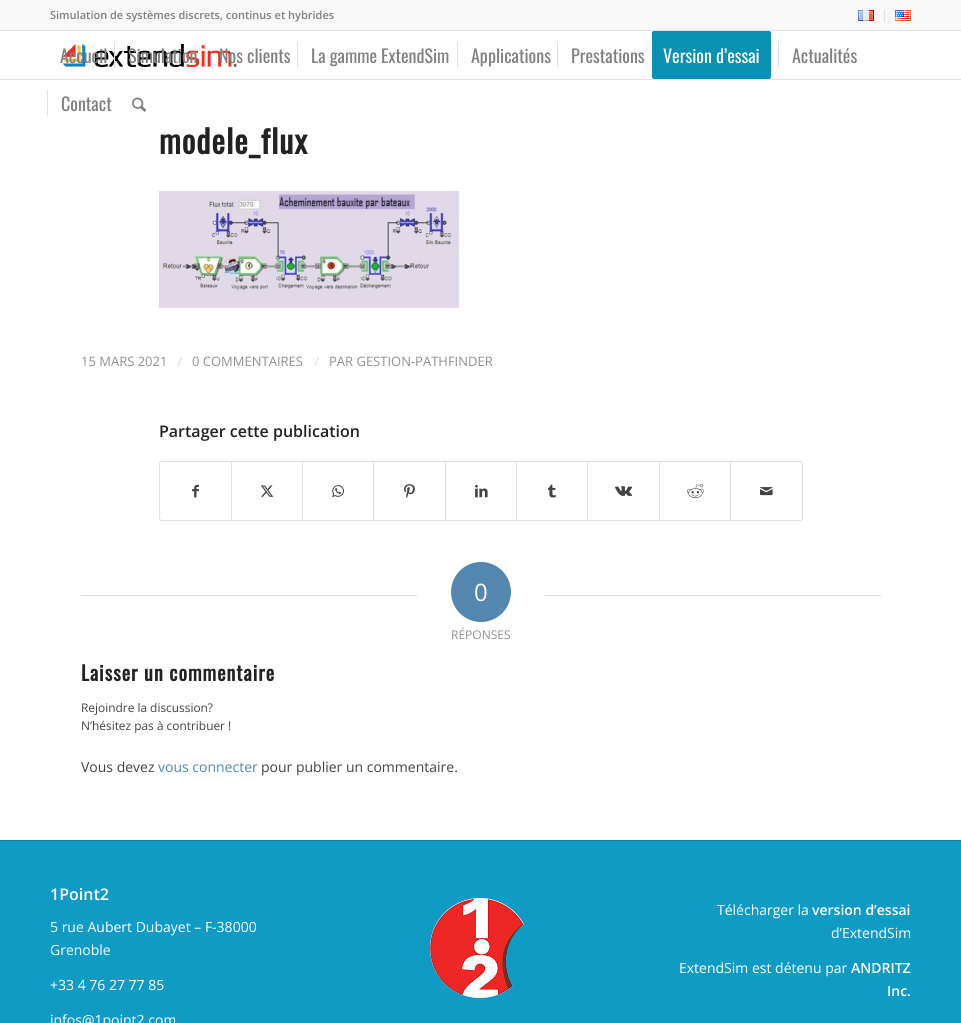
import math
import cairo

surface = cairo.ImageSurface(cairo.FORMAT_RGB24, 961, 1023)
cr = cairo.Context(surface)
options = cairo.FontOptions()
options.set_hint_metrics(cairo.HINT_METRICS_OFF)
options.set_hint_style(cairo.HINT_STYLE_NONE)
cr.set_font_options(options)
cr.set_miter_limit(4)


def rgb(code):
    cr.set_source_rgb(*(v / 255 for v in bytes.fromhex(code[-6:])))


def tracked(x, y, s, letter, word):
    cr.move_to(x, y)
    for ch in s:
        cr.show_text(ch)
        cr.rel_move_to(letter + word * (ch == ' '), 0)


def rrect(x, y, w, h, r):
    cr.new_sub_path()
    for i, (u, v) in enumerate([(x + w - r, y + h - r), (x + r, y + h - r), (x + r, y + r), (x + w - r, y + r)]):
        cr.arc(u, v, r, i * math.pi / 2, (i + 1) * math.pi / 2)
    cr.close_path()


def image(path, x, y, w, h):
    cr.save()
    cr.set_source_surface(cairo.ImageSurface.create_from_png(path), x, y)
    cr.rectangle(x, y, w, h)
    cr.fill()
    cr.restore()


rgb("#ffffff")
cr.paint()
for x, y, w, h, color in [
    (0, 0, 961, 30, "#f8f8f8"),
    (0, 30, 961, 1, "#e1e1e1"),
    (884, 10, 1, 12, "#e1e1e1"),
]:
    rgb(color)
    cr.rectangle(x, y, w, h)
    cr.fill()
image("img/1.png", 858, 10, 16, 11)
image("img/2.png", 895, 10, 16, 11)
cr.rectangle(0, 79, 961, 1)
cr.fill()
image("img/3.png", 61, 42, 176, 25)
for x, y, w, h, color in [
    (114, 42, 1, 26, "#e1e1e1"),
    (205, 42, 1, 26, "#e1e1e1"),
    (297, 42, 1, 26, "#e1e1e1"),
    (457, 42, 1, 26, "#e1e1e1"),
    (557, 42, 1, 26, "#e1e1e1"),
]:
    rgb(color)
    cr.rectangle(x, y, w, h)
    cr.fill()
rgb("#0990b5")
rrect(653, 32, 117, 46, 1)
cr.fill_preserve()
cr.stroke()
rgb("#e1e1e1")
cr.rectangle(778, 42, 1, 26)
cr.fill()
cr.rectangle(47, 90, 1, 26)
cr.fill()
image("img/4.png", 132, 97, 15, 15)
image("img/5.png", 159, 191, 300, 117)
rrect(159.5, 461.5, 643, 59, 2.5)
cr.set_line_width(1)
cr.stroke()
image("img/6.png", 192, 484, 7, 14)
cr.rectangle(231, 462, 1, 58)
cr.fill()
image("img/7.png", 260, 485, 14, 12)
cr.rectangle(302, 462, 1, 58)
cr.fill()
image("img/8.png", 332, 485, 12, 13)
cr.rectangle(373, 462, 1, 58)
cr.fill()
image("img/9.png", 404, 484, 11, 14)
cr.rectangle(445, 462, 1, 58)
cr.fill()
image("img/10.png", 475, 484, 13, 14)
cr.rectangle(516, 462, 1, 58)
cr.fill()
image("img/11.png", 548, 484, 8, 14)
cr.rectangle(587, 462, 1, 58)
cr.fill()
image("img/12.png", 615, 486, 17, 10)
cr.rectangle(659, 462, 1, 58)
cr.fill()
image("img/13.png", 687, 484, 17, 15)
cr.rectangle(730, 462, 1, 58)
cr.fill()
image("img/14.png", 760, 487, 13, 9)
cr.rectangle(81, 595, 336, 1)
cr.fill()
rgb("#5487b0")
cr.arc(481, 592, 30, 0, 2 * math.pi)
cr.fill()
for x, y, w, h, color in [
    (545, 595, 336, 1, "#e1e1e1"),
    (0, 841, 961, 182, "#109bc5"),
    (0, 840, 961, 1, "#0f81a1"),
]:
    rgb(color)
    cr.rectangle(x, y, w, h)
    cr.fill()
image("img/15.png", 430, 898, 94, 100)
cr.select_font_face("Open Sans SemiBold")
cr.set_font_size(11)
rgb("#808080")
cr.move_to(50, 19)
cr.show_text("Simulation de systèmes discrets, continus et hybrides")
cr.select_font_face("Oswald")
cr.set_font_size(18)
for x, y, s in [
    (60, 63, "Accueil"),
    (128, 63, "Simulation"),
    (219, 63, "Nos clients"),
    (311, 63, "La gamme ExtendSim"),
    (471, 63, "Applications"),
    (571, 63, "Prestations"),
]:
    cr.move_to(x, y)
    cr.show_text(s)
rgb("#ffffff")
cr.move_to(663, 63)
cr.show_text("Version d’essai")
rgb("#808080")
cr.move_to(792, 63)
cr.show_text("Actualités")
cr.move_to(61, 111)
cr.show_text("Contact")
cr.select_font_face("Oswald", cairo.FONT_SLANT_NORMAL, cairo.FONT_WEIGHT_BOLD)
cr.set_font_size(32)
rgb("#222222")
tracked(159, 154, "modele_flux", 1, 0)
cr.select_font_face("Open Sans")
cr.set_font_size(13)
rgb("#919191")
cr.move_to(81, 366)
cr.show_text("15 MARS 2021")
cr.set_font_size(14)
rgb("#dedede")
cr.move_to(177, 367)
cr.show_text("/")
cr.set_font_size(13)
rgb("#919191")
cr.move_to(192, 366)
cr.show_text("0 COMMENTAIRES")
cr.set_font_size(14)
rgb("#dedede")
cr.move_to(314, 367)
cr.show_text("/")
cr.set_font_size(13)
rgb("#919191")
cr.move_to(329, 366)
cr.show_text("PAR GESTION-PATHFINDER")
cr.select_font_face("Open Sans SemiBold")
cr.set_font_size(16)
rgb("#222222")
cr.move_to(159, 437)
cr.show_text("Partager cette publication")
cr.select_font_face("Open Sans")
cr.set_font_size(24)
rgb("#ffffff")
cr.move_to(474, 601)
cr.show_text("0")
cr.set_font_size(12)
rgb("#919191")
cr.move_to(451, 639)
cr.show_text("RÉPONSES")
cr.select_font_face("Oswald", cairo.FONT_SLANT_NORMAL, cairo.FONT_WEIGHT_BOLD)
cr.set_font_size(20)
rgb("#222222")
tracked(81, 681, "Laisser un commentaire", 1, 0)
cr.select_font_face("Open Sans")
cr.set_font_size(11.9)
rgb("#444444")
cr.move_to(81, 712)
cr.show_text("Rejoindre la discussion?")
cr.move_to(81, 730)
cr.show_text("N’hésitez pas à contribuer !")
cr.set_font_size(14)
cr.move_to(81, 772)
cr.show_text("Vous devez")
rgb("#5487b0")
cr.move_to(158, 772)
cr.show_text("vous connecter")
rgb("#444444")
cr.move_to(261, 772)
cr.show_text("pour publier un commentaire.")
cr.select_font_face("Open Sans SemiBold")
cr.set_font_size(16)
rgb("#ffffff")
cr.move_to(50, 900)
cr.show_text("1Point2")
cr.select_font_face("Open Sans")
cr.set_font_size(14)
for x, y, s in [
    (50, 932, "5 rue Aubert Dubayet – F-38000"),
    (50, 955, "Grenoble"),
    (50, 990, "+33 4 76 27 77 85"),
    (50, 1025, "infos@1point2.com"),
    (717, 915, "Télécharger la"),
]:
    cr.move_to(x, y)
    cr.show_text(s)
cr.select_font_face("Open Sans SemiBold")
cr.move_to(812, 915)
cr.show_text("version d’essai")
cr.select_font_face("Open Sans")
cr.move_to(831, 938)
cr.show_text("d’ExtendSim")
cr.move_to(679, 973)
cr.show_text("ExtendSim est détenu par")
cr.select_font_face("Open Sans SemiBold")
cr.move_to(851, 973)
cr.show_text("ANDRITZ")
cr.move_to(887, 996)
cr.show_text("Inc.")
surface.write_to_png("page.png")
